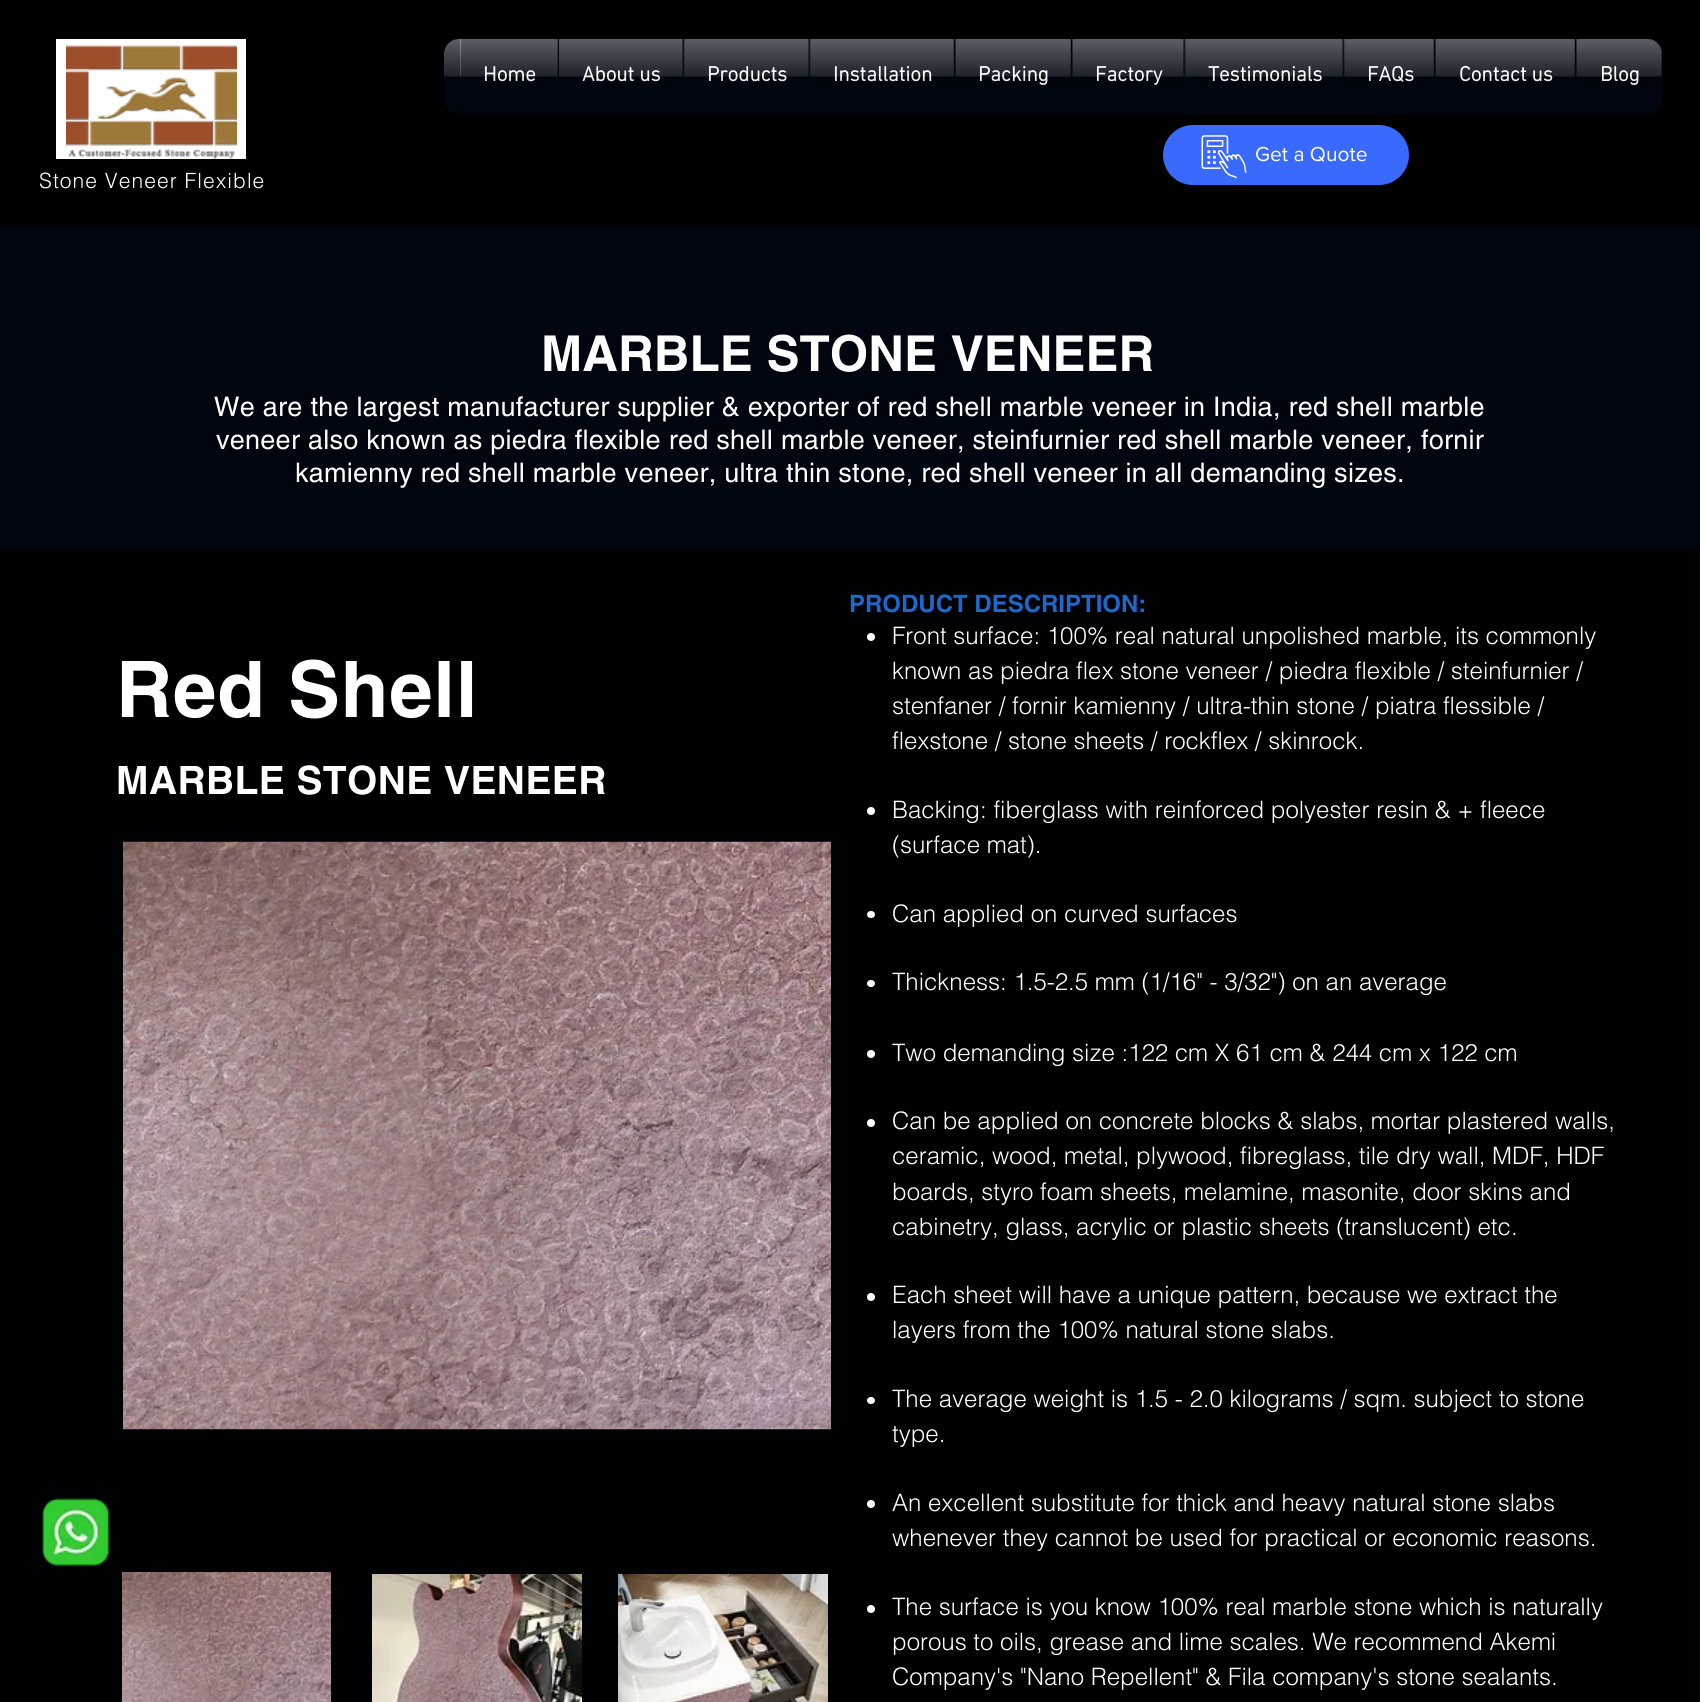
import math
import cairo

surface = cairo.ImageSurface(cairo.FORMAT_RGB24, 1700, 1702)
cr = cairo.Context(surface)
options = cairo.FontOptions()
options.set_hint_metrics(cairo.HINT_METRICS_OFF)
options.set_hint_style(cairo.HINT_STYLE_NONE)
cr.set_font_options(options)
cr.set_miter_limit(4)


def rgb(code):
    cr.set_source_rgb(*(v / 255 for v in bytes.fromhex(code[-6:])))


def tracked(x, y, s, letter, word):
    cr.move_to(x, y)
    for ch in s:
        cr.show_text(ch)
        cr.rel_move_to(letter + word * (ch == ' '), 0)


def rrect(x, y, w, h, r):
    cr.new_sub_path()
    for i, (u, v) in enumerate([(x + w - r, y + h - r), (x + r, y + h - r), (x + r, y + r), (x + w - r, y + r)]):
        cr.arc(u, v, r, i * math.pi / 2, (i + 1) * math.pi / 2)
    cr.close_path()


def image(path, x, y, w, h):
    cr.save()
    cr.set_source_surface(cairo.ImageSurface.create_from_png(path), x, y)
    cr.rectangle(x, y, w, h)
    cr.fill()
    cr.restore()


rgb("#00060f")
cr.paint()
rgb("#000000")
cr.rectangle(0, 0, 1700, 225)
cr.fill()
rgb("#00060f")
rrect(444, 39, 1218, 75, 15)
cr.fill()
image("img/1.png", 444, 39, 1218, 38)
cr.rectangle(461, 39, 1114, 38)
cr.fill()
cr.new_path()
cr.move_to(1575, 39)
cr.line_to(1647, 39)
cr.curve_to(1655.5, 39, 1662, 45.5, 1662, 54)
cr.line_to(1662, 99)
cr.curve_to(1662, 107.5, 1655.5, 114, 1647, 114)
cr.line_to(1575, 114)
cr.close_path()
cr.fill()
rgb("#3a6afd")
rrect(1163, 125, 246, 60, 30)
cr.fill()
image("img/12.png", 1201, 135, 46, 44)
rgb("#ffffff")
cr.rectangle(56, 39, 190, 120)
cr.fill()
image("img/13.png", 66, 44, 171, 115)
rgb("#000102")
cr.rectangle(1, 552, 1694, 1150)
cr.fill()
cr.new_path()
cr.move_to(1696.5, 550.5)
cr.line_to(1696.5, 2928)
cr.line_to(0, 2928)
cr.line_to(0, 550.5)
cr.close_path()
rgb("#000000")
cr.set_line_width(3)
cr.stroke()
image("img/14.png", 41, 1498, 69, 69)
rgb("#ffffff")
cr.arc(871, 637, 4, 0, 2 * math.pi)
cr.fill()
cr.arc(871, 811, 4, 0, 2 * math.pi)
cr.fill()
rrect(867, 911, 8, 7, 3.5)
cr.fill()
rrect(867, 980, 8, 7, 3.5)
cr.fill()
cr.arc(871, 1054, 4, 0, 2 * math.pi)
cr.fill()
cr.arc(871, 1123, 4, 0, 2 * math.pi)
cr.fill()
cr.arc(871, 1297, 4, 0, 2 * math.pi)
cr.fill()
rrect(867, 1397, 8, 7, 3.5)
cr.fill()
cr.arc(871, 1504, 4, 0, 2 * math.pi)
cr.fill()
cr.arc(871, 1609, 4, 0, 2 * math.pi)
cr.fill()
image("img/15.png", 123, 841, 708, 589)
image("img/16.png", 122, 1572, 209, 130)
image("img/17.png", 372, 1574, 210, 128)
image("img/18.png", 618, 1574, 210, 128)
cr.select_font_face("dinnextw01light", cairo.FONT_SLANT_NORMAL, cairo.FONT_WEIGHT_BOLD)
cr.set_font_size(21)
cr.move_to(483, 81)
cr.show_text("Home")
image("img/2.png", 460, 39, 98, 42)
cr.move_to(582, 81)
cr.show_text("About us")
image("img/3.png", 559, 39, 124, 42)
cr.move_to(707, 81)
cr.show_text("Products")
image("img/4.png", 683, 39, 126, 42)
cr.move_to(833, 81)
cr.show_text("Installation")
image("img/5.png", 809, 39, 145, 43)
cr.move_to(978, 81)
cr.show_text("Packing")
image("img/6.png", 955, 39, 116, 46)
cr.move_to(1095, 81)
cr.show_text("Factory")
image("img/7.png", 1072, 39, 112, 46)
cr.move_to(1208, 81)
cr.show_text("Testimonials")
image("img/8.png", 1184, 39, 159, 43)
cr.move_to(1367, 81)
cr.show_text("FAQs")
image("img/9.png", 1343, 39, 91, 43)
cr.move_to(1459, 81)
cr.show_text("Contact us")
image("img/10.png", 1435, 39, 140, 42)
cr.move_to(1600, 81)
cr.show_text("Blog")
image("img/11.png", 1576, 39, 86, 46)
cr.select_font_face("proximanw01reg")
cr.move_to(1255, 161)
cr.show_text("Get a Quote")
cr.select_font_face("helvetica Light")
tracked(39, 188, "Stone Veneer Flexible", 1.05, 0)
cr.select_font_face("helvetica", cairo.FONT_SLANT_NORMAL, cairo.FONT_WEIGHT_BOLD)
cr.set_font_size(49.5)
cr.move_to(541, 371)
cr.show_text("MARBLE STONE VENEER")
cr.select_font_face("helvetica")
cr.set_font_size(27)
for x, y, s in [
    (214, 416, "We are the largest manufacturer supplier & exporter of red shell marble veneer in India, red shell marble"),
    (216, 449, "veneer also known as piedra flexible red shell marble veneer, steinfurnier red shell marble veneer, fornir"),
    (295, 482, "kamienny red shell marble veneer, ultra thin stone, red shell veneer in all demanding sizes."),
]:
    tracked(x, y, s, 0.27, 0)
cr.select_font_face("helvetica", cairo.FONT_SLANT_NORMAL, cairo.FONT_WEIGHT_BOLD)
cr.set_font_size(78)
tracked(116, 717, "Red Shell", 0.75, 0)
cr.set_font_size(24)
rgb("#1d67cd")
cr.move_to(849, 612)
cr.show_text("PRODUCT DESCRIPTION:")
cr.select_font_face("helvetica Light")
rgb("#ffffff")
for x, y, s in [
    (892, 644, "Front surface: 100% real natural unpolished marble, its commonly"),
    (892, 679, "known as piedra flex stone veneer / piedra flexible / steinfurnier /"),
    (892, 714, "stenfaner / fornir kamienny / ultra-thin stone / piatra flessible /"),
    (892, 749, "flexstone / stone sheets / rockflex / skinrock."),
    (892, 818, "Backing: fiberglass with reinforced polyester resin & + fleece"),
    (892, 853, "(surface mat)."),
    (892, 922, "Can applied on curved surfaces"),
    (892, 990, "Thickness: 1.5-2.5 mm (1/16\" - 3/32\") on an average"),
    (892, 1061, "Two demanding size :122 cm X 61 cm & 244 cm x 122 cm"),
    (892, 1129, "Can be applied on concrete blocks & slabs, mortar plastered walls,"),
    (892, 1164, "ceramic, wood, metal, plywood, fibreglass, tile dry wall, MDF, HDF"),
    (892, 1200, "boards, styro foam sheets, melamine, masonite, door skins and"),
    (892, 1235, "cabinetry, glass, acrylic or plastic sheets (translucent) etc."),
    (892, 1303, "Each sheet will have a unique pattern, because we extract the"),
    (892, 1338, "layers from the 100% natural stone slabs."),
    (892, 1407, "The average weight is 1.5 - 2.0 kilograms / sqm. subject to stone"),
    (892, 1442, "type."),
    (892, 1511, "An excellent substitute for thick and heavy natural stone slabs"),
    (892, 1546, "whenever they cannot be used for practical or economic reasons."),
    (892, 1615, "The surface is you know 100% real marble stone which is naturally"),
    (892, 1650, "porous to oils, grease and lime scales. We recommend Akemi"),
    (892, 1685, "Company's \"Nano Repellent\" & Fila company's stone sealants."),
]:
    cr.move_to(x, y)
    cr.show_text(s)
cr.select_font_face("helvetica", cairo.FONT_SLANT_NORMAL, cairo.FONT_WEIGHT_BOLD)
cr.set_font_size(39)
tracked(116, 794, "MARBLE STONE VENEER", 0.4, 0)
surface.write_to_png("page.png")
